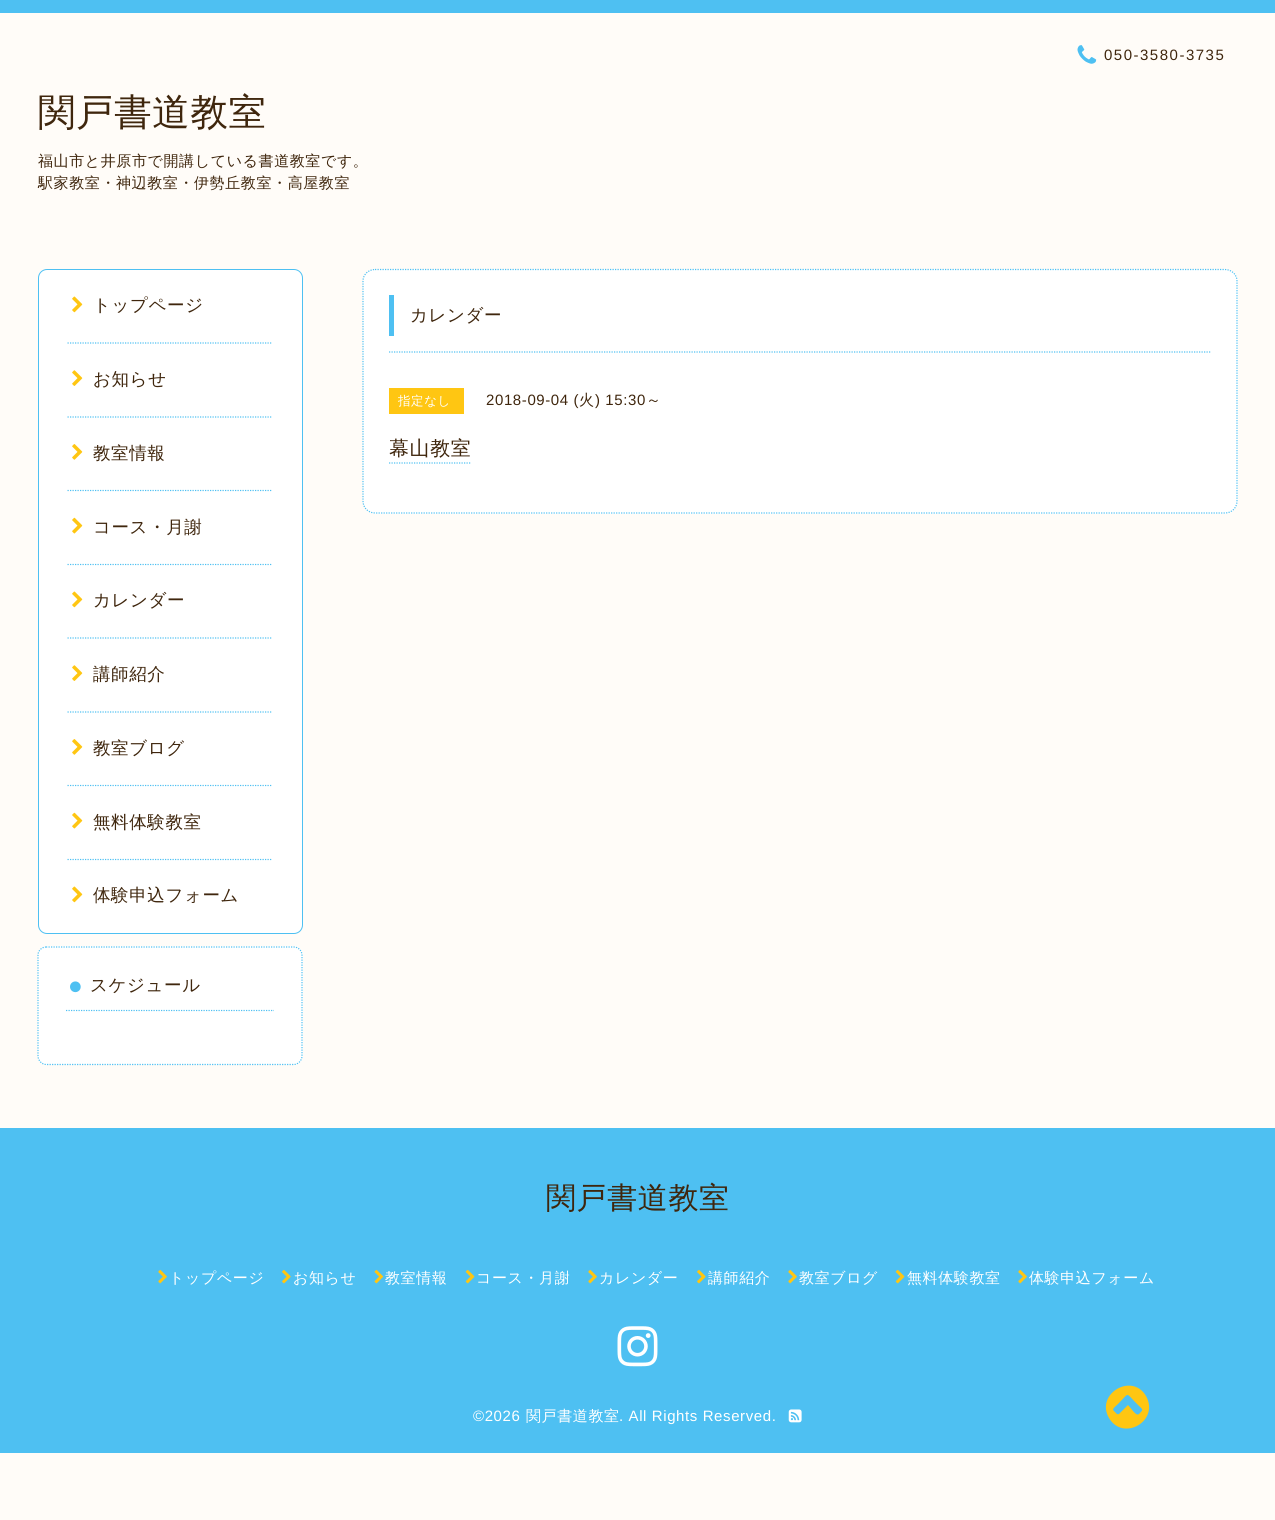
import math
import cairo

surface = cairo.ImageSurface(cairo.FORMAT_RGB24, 1275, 1520)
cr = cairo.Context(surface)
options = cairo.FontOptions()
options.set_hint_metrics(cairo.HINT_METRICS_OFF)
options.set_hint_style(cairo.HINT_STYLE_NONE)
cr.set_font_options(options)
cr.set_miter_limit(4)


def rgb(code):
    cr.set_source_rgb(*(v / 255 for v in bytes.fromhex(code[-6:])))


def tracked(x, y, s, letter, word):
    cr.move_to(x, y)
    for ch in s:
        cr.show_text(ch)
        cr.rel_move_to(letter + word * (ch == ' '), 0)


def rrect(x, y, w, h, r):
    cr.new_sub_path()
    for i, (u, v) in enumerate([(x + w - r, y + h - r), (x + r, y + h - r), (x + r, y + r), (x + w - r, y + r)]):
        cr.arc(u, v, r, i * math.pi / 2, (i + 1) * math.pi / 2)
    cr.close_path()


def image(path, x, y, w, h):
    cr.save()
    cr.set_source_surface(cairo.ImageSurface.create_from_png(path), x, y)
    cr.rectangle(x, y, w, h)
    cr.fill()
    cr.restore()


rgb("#fffcf8")
cr.paint()
rgb("#4ec0f2")
cr.rectangle(0, 0, 1275, 13)
cr.fill()
image("img/1.png", 1077, 45, 20, 19)
rgb("#ffffff")
rrect(38.5, 269.5, 264, 664, 8.5)
cr.fill_preserve()
rgb("#4ec0f2")
cr.set_line_width(1)
cr.stroke()
cr.new_path()
cr.move_to(67.5, 343)
cr.line_to(272.5, 343)
cr.set_line_width(1.2)
cr.set_dash([1.25, 1.25])
cr.stroke()
image("img/2.png", 72, 296, 11, 17)
cr.new_path()
cr.move_to(67.5, 417)
cr.line_to(272.5, 417)
cr.stroke()
image("img/3.png", 72, 370, 11, 16)
cr.new_path()
cr.move_to(67.5, 490.5)
cr.line_to(272.5, 490.5)
cr.stroke()
image("img/4.png", 72, 444, 11, 16)
cr.new_path()
cr.move_to(67.5, 564.5)
cr.line_to(272.5, 564.5)
cr.stroke()
image("img/5.png", 72, 517, 11, 17)
cr.new_path()
cr.move_to(67.5, 638)
cr.line_to(272.5, 638)
cr.stroke()
image("img/2.png", 72, 591, 11, 17)
cr.new_path()
cr.move_to(67.5, 712)
cr.line_to(272.5, 712)
cr.stroke()
image("img/3.png", 72, 665, 11, 16)
cr.new_path()
cr.move_to(67.5, 785.5)
cr.line_to(272.5, 785.5)
cr.stroke()
image("img/4.png", 72, 739, 11, 16)
cr.new_path()
cr.move_to(67.5, 859.5)
cr.line_to(272.5, 859.5)
cr.stroke()
image("img/5.png", 72, 812, 11, 17)
image("img/2.png", 72, 886, 11, 17)
rgb("#ffffff")
rrect(38, 946, 265, 119, 9)
cr.fill()
cr.new_path()
cr.move_to(46, 947)
cr.line_to(294, 947)
cr.curve_to(298, 947, 302, 950.5, 302, 955)
cr.line_to(302, 1056)
cr.curve_to(302, 1060.5, 298, 1064.5, 294, 1064.5)
cr.line_to(46, 1064.5)
cr.curve_to(42, 1064.5, 38, 1060.5, 38, 1056)
cr.line_to(38, 955)
cr.curve_to(38, 950.5, 42, 947, 46, 947)
cr.close_path()
rgb("#4ec0f2")
cr.stroke()
cr.new_path()
cr.move_to(66, 1010.5)
cr.line_to(274, 1010.5)
cr.stroke()
image("img/6.png", 70, 981, 11, 12)
rgb("#ffffff")
rrect(363, 269, 875, 245, 13)
cr.fill()
cr.new_path()
cr.move_to(375, 269.5)
cr.line_to(1225, 269.5)
cr.curve_to(1231.5, 269.5, 1237, 274.5, 1237, 281)
cr.line_to(1237, 501)
cr.curve_to(1237, 508, 1231.5, 513, 1225, 513)
cr.line_to(375, 513)
cr.curve_to(368.5, 513, 363, 508, 363, 501)
cr.line_to(363, 281)
cr.curve_to(363, 274.5, 368.5, 269.5, 375, 269.5)
cr.close_path()
rgb("#4ec0f2")
cr.stroke()
cr.rectangle(389, 295, 5, 41)
cr.fill()
cr.new_path()
cr.move_to(389, 352)
cr.line_to(1211, 352)
cr.stroke()
rgb("#ffc612")
cr.rectangle(389, 388, 75, 26)
cr.fill()
cr.new_path()
cr.move_to(389, 463)
cr.line_to(471, 463)
rgb("#4ec0f2")
cr.stroke()
cr.rectangle(0, 1128, 1275, 325)
cr.fill()
rgb("#ffc612")
cr.new_path()
cr.move_to(1139, 1414)
cr.curve_to(1144, 1409, 1143, 1410, 1137, 1404)
cr.curve_to(1125, 1392, 1130, 1392, 1118, 1404)
cr.curve_to(1114, 1408, 1111, 1409, 1115, 1412)
cr.curve_to(1116, 1413, 1117, 1415, 1119, 1414)
cr.line_to(1128, 1405)
cr.line_to(1133, 1411)
cr.curve_to(1134, 1412, 1137, 1416, 1139, 1414)
cr.close_path()
cr.move_to(1146, 1396)
cr.curve_to(1160, 1421, 1123, 1442, 1109, 1418)
cr.curve_to(1095, 1394, 1132, 1372, 1146, 1396)
cr.close_path()
cr.fill()
image("img/7.png", 158, 1269, 9, 15)
image("img/8.png", 282, 1269, 9, 15)
image("img/9.png", 374, 1269, 10, 15)
image("img/10.png", 465, 1269, 10, 15)
image("img/7.png", 588, 1269, 9, 15)
image("img/8.png", 697, 1269, 9, 15)
image("img/7.png", 788, 1269, 9, 15)
image("img/10.png", 895, 1269, 10, 15)
image("img/7.png", 1018, 1269, 9, 15)
image("img/11.png", 617, 1326, 41, 41)
image("img/12.png", 788, 1409, 14, 14)
cr.select_font_face("Liberation Sans")
cr.set_font_size(15)
rgb("#3f260d")
tracked(1104, 60, "050-3580-3735", 1.5, 0)
cr.select_font_face("WenQuanYi Zen Hei Medium")
cr.set_font_size(37.5)
tracked(38, 125, "関戸書道教室", 0.6, 0)
cr.set_font_size(15)
tracked(38, 166, "福山市と井原市で開講している書道教室です。", 0.6, 0)
tracked(38, 188, "駅家教室・神辺教室・伊勢丘教室・高屋教室", 0.6, 0)
cr.set_font_size(17.5)
for x, y, s in [
    (93, 311, "トップページ"),
    (93, 385, "お知らせ"),
    (93, 459, "教室情報"),
    (93, 533, "コース・月謝"),
    (93, 606, "カレンダー"),
    (93, 680, "講師紹介"),
    (93, 754, "教室ブログ"),
    (93, 828, "無料体験教室"),
    (93, 901, "体験申込フォーム"),
    (90, 991, "スケジュール"),
    (410, 321, "カレンダー"),
]:
    tracked(x, y, s, 0.6, 0)
cr.set_font_size(12.5)
rgb("#ffffff")
tracked(398, 405, "指定なし", 0.6, 0)
cr.select_font_face("Liberation Sans")
cr.set_font_size(15)
rgb("#3f260d")
tracked(486, 405, "2018-09-04 (", 0.6, 0)
cr.select_font_face("WenQuanYi Zen Hei Medium")
tracked(579, 405, "火", 0.6, 0)
cr.select_font_face("Liberation Sans")
tracked(595, 405, ") 15:30", 0.6, 0)
cr.select_font_face("WenQuanYi Zen Hei Medium")
tracked(646, 405, "～", 0.6, 0)
cr.set_font_size(20)
tracked(389, 455, "幕山教室", 0.6, 0)
cr.set_font_size(30)
tracked(546, 1208, "関戸書道教室", 0.6, 0)
cr.set_font_size(15)
rgb("#ffffff")
for x, y, s in [
    (169, 1283, "トップページ"),
    (293, 1283, "お知らせ"),
    (385, 1283, "教室情報"),
    (476, 1283, "コース・月謝"),
    (599, 1283, "カレンダー"),
    (708, 1283, "講師紹介"),
    (799, 1283, "教室ブログ"),
    (907, 1283, "無料体験教室"),
    (1029, 1283, "体験申込フォーム"),
]:
    tracked(x, y, s, 0.6, 0)
cr.select_font_face("Liberation Sans")
tracked(473, 1421, "©2026", 0.6, 0)
cr.select_font_face("WenQuanYi Zen Hei Medium")
tracked(526, 1421, "関戸書道教室", 0.6, 0)
cr.select_font_face("Liberation Sans")
tracked(619, 1421, ". All Rights Reserved.", 0.6, 0)
surface.write_to_png("page.png")
